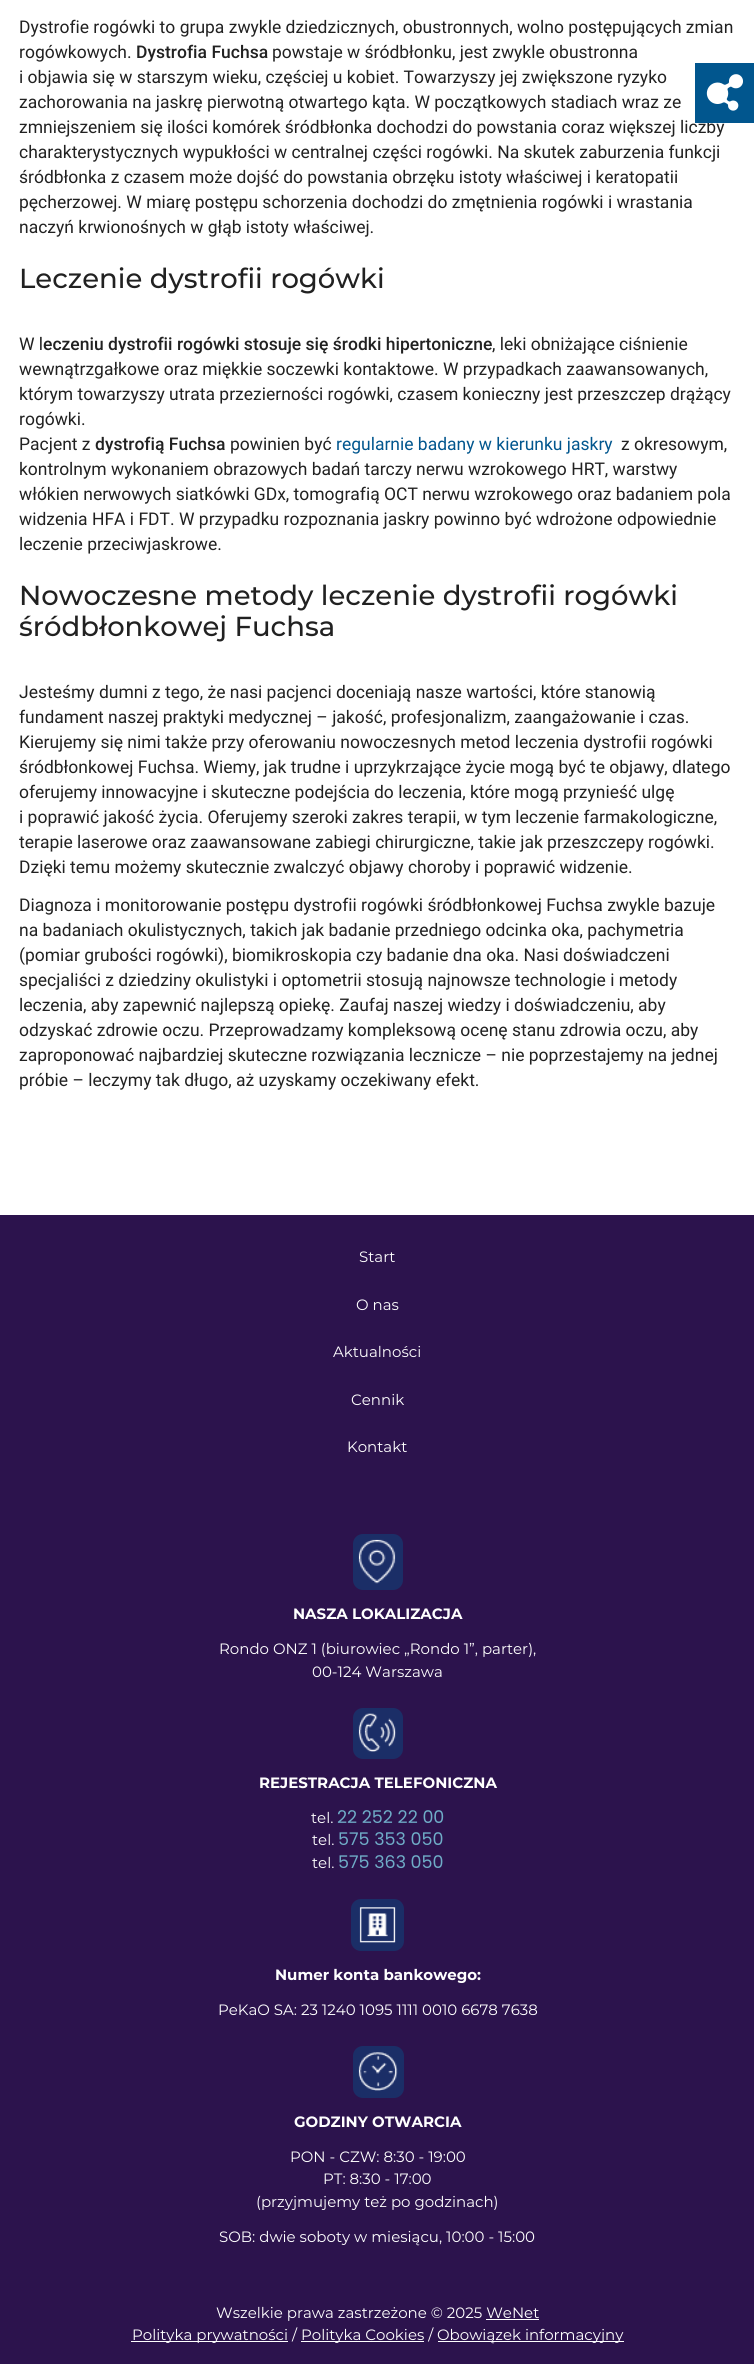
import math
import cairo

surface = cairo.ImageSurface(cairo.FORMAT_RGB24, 754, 2364)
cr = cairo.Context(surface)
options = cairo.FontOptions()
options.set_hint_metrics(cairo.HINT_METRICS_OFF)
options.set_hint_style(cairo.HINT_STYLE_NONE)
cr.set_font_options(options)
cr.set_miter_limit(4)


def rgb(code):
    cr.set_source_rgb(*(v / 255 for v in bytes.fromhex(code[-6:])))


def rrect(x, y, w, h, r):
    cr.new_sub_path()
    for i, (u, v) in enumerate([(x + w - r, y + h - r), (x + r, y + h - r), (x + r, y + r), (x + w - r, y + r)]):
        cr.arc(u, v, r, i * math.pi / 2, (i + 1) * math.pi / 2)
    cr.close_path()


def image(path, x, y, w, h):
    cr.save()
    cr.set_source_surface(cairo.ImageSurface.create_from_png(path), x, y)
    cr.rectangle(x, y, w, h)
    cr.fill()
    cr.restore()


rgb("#ffffff")
cr.paint()
rgb("#2c134d")
cr.rectangle(0, 1215, 754, 1149)
cr.fill()
rgb("#1b2e67")
rrect(353, 1534, 50, 56, 10)
cr.fill()
image("img/2.png", 358, 1539, 38, 45)
rrect(353, 1708, 50, 51, 10)
cr.fill()
image("img/3.png", 358, 1713, 38, 39)
rrect(351, 1899, 53, 52, 10)
cr.fill()
image("img/4.png", 359, 1907, 37, 36)
rrect(353, 2046, 51, 52, 10)
cr.fill()
image("img/5.png", 358, 2052, 40, 39)
for x, y, w, h, color in [
    (486, 2319, 53, 1, "#ffffff"),
    (131, 2341, 157, 1, "#ffffff"),
    (301, 2341, 123, 1, "#ffffff"),
    (438, 2341, 186, 1, "#ffffff"),
]:
    rgb(color)
    cr.rectangle(x, y, w, h)
    cr.fill()
cr.select_font_face("Roboto")
cr.set_font_size(17.5)
rgb("#212121")
cr.move_to(19, 33)
cr.show_text("Dystrofie rogówki to grupa zwykle dziedzicznych, obustronnych, wolno postępujących zmian")
cr.move_to(19, 58)
cr.show_text("rogówkowych.")
cr.select_font_face("Roboto Medium")
cr.move_to(136, 58)
cr.show_text("Dystrofia Fuchsa")
cr.select_font_face("Roboto")
for x, y, s in [
    (272, 58, "powstaje w śródbłonku, jest zwykle obustronna"),
    (19, 83, "i objawia się w starszym wieku, częściej u kobiet. Towarzyszy jej zwiększone ryzyko"),
    (19, 108, "zachorowania na jaskrę pierwotną otwartego kąta. W początkowych stadiach wraz ze"),
    (19, 133, "zmniejszeniem się ilości komórek śródbłonka dochodzi do powstania coraz większej liczby"),
    (19, 158, "charakterystycznych wypukłości w centralnej części rogówki. Na skutek zaburzenia funkcji"),
    (19, 183, "śródbłonka z czasem może dojść do powstania obrzęku istoty właściwej i keratopatii"),
    (19, 208, "pęcherzowej. W miarę postępu schorzenia dochodzi do zmętnienia rogówki i wrastania"),
    (19, 233, "naczyń krwionośnych w głąb istoty właściwej."),
]:
    cr.move_to(x, y)
    cr.show_text(s)
cr.select_font_face("Montserrat Medium")
cr.set_font_size(27.5)
cr.move_to(19, 288)
cr.show_text("Leczenie dystrofii rogówki")
cr.select_font_face("Roboto")
cr.set_font_size(17.5)
cr.move_to(19, 350)
cr.show_text("W l")
cr.select_font_face("Roboto Medium")
cr.move_to(43, 350)
cr.show_text("eczeniu dystrofii rogówki stosuje się środki hipertoniczne")
cr.select_font_face("Roboto")
for x, y, s in [
    (492, 350, ", leki obniżające ciśnienie"),
    (19, 375, "wewnątrzgałkowe oraz miękkie soczewki kontaktowe. W przypadkach zaawansowanych,"),
    (19, 400, "którym towarzyszy utrata przezierności rogówki, czasem konieczny jest przeszczep drążący"),
    (19, 425, "rogówki."),
    (19, 450, "Pacjent z"),
]:
    cr.move_to(x, y)
    cr.show_text(s)
cr.select_font_face("Roboto Medium")
cr.move_to(95, 450)
cr.show_text("dystrofią Fuchsa")
cr.select_font_face("Roboto")
cr.move_to(230, 450)
cr.show_text("powinien być")
rgb("#01568e")
cr.move_to(336, 450)
cr.show_text("regularnie badany w kierunku jaskry")
rgb("#212121")
for x, y, s in [
    (621, 450, "z okresowym,"),
    (19, 475, "kontrolnym wykonaniem obrazowych badań tarczy nerwu wzrokowego HRT, warstwy"),
    (19, 500, "włókien nerwowych siatkówki GDx, tomografią OCT nerwu wzrokowego oraz badaniem pola"),
    (19, 525, "widzenia HFA i FDT. W przypadku rozpoznania jaskry powinno być wdrożone odpowiednie"),
    (19, 550, "leczenie przeciwjaskrowe."),
]:
    cr.move_to(x, y)
    cr.show_text(s)
cr.select_font_face("Montserrat Medium")
cr.set_font_size(27.5)
cr.move_to(19, 605)
cr.show_text("Nowoczesne metody leczenie dystrofii rogówki")
cr.move_to(19, 636)
cr.show_text("śródbłonkowej Fuchsa")
cr.select_font_face("Roboto")
cr.set_font_size(17.5)
for x, y, s in [
    (19, 698, "Jesteśmy dumni z tego, że nasi pacjenci doceniają nasze wartości, które stanowią"),
    (19, 723, "fundament naszej praktyki medycznej – jakość, profesjonalizm, zaangażowanie i czas."),
    (19, 748, "Kierujemy się nimi także przy oferowaniu nowoczesnych metod leczenia dystrofii rogówki"),
    (19, 773, "śródbłonkowej Fuchsa. Wiemy, jak trudne i uprzykrzające życie mogą być te objawy, dlatego"),
    (19, 798, "oferujemy innowacyjne i skuteczne podejścia do leczenia, które mogą przynieść ulgę"),
    (19, 823, "i poprawić jakość życia. Oferujemy szeroki zakres terapii, w tym leczenie farmakologiczne,"),
    (19, 848, "terapie laserowe oraz zaawansowane zabiegi chirurgiczne, takie jak przeszczepy rogówki."),
    (19, 873, "Dzięki temu możemy skutecznie zwalczyć objawy choroby i poprawić widzenie."),
    (19, 911, "Diagnoza i monitorowanie postępu dystrofii rogówki śródbłonkowej Fuchsa zwykle bazuje"),
    (19, 936, "na badaniach okulistycznych, takich jak badanie przedniego odcinka oka, pachymetria"),
    (19, 961, "(pomiar grubości rogówki), biomikroskopia czy badanie dna oka. Nasi doświadczeni"),
    (19, 986, "specjaliści z dziedziny okulistyki i optometrii stosują najnowsze technologie i metody"),
    (19, 1011, "leczenia, aby zapewnić najlepszą opiekę. Zaufaj naszej wiedzy i doświadczeniu, aby"),
    (19, 1036, "odzyskać zdrowie oczu. Przeprowadzamy kompleksową ocenę stanu zdrowia oczu, aby"),
    (19, 1061, "zaproponować najbardziej skuteczne rozwiązania lecznicze – nie poprzestajemy na jednej"),
    (19, 1086, "próbie – leczymy tak długo, aż uzyskamy oczekiwany efekt."),
]:
    cr.move_to(x, y)
    cr.show_text(s)
rgb("#01568e")
cr.rectangle(695, 63, 59, 60)
cr.fill()
image("img/1.png", 706, 74, 37, 37)
cr.select_font_face("Montserrat")
cr.set_font_size(15)
rgb("#ffffff")
for x, y, s in [
    (359, 1262, "Start"),
    (356, 1310, "O nas"),
    (333, 1357, "Aktualności"),
    (351, 1405, "Cennik"),
    (347, 1452, "Kontakt"),
]:
    cr.move_to(x, y)
    cr.show_text(s)
cr.select_font_face("Montserrat", cairo.FONT_SLANT_NORMAL, cairo.FONT_WEIGHT_BOLD)
cr.move_to(293, 1619)
cr.show_text("NASZA LOKALIZACJA")
cr.select_font_face("Montserrat")
cr.move_to(219, 1654)
cr.show_text("Rondo ONZ 1 (biurowiec „Rondo 1”, parter),")
cr.move_to(312, 1677)
cr.show_text("00-124 Warszawa")
cr.select_font_face("Montserrat", cairo.FONT_SLANT_NORMAL, cairo.FONT_WEIGHT_BOLD)
cr.move_to(259, 1788)
cr.show_text("REJESTRACJA TELEFONICZNA")
cr.select_font_face("Montserrat")
cr.move_to(311, 1823)
cr.show_text("tel.")
cr.select_font_face("Poppins")
cr.set_font_size(17.5)
rgb("#6facc7")
cr.move_to(337, 1823)
cr.show_text("22 252 22 00")
cr.select_font_face("Montserrat")
cr.set_font_size(15)
rgb("#ffffff")
cr.move_to(312, 1845)
cr.show_text("tel.")
cr.select_font_face("Poppins")
cr.set_font_size(17.5)
rgb("#6facc7")
cr.move_to(338, 1845)
cr.show_text("575 353 050")
cr.select_font_face("Montserrat")
cr.set_font_size(15)
rgb("#ffffff")
cr.move_to(312, 1868)
cr.show_text("tel.")
cr.select_font_face("Poppins")
cr.set_font_size(17.5)
rgb("#6facc7")
cr.move_to(338, 1868)
cr.show_text("575 363 050")
cr.select_font_face("Montserrat", cairo.FONT_SLANT_NORMAL, cairo.FONT_WEIGHT_BOLD)
cr.set_font_size(15)
rgb("#ffffff")
cr.move_to(275, 1980)
cr.show_text("Numer konta bankowego:")
cr.select_font_face("Montserrat")
cr.move_to(218, 2015)
cr.show_text("PeKaO SA: 23 1240 1095 1111 0010 6678 7638")
cr.select_font_face("Montserrat", cairo.FONT_SLANT_NORMAL, cairo.FONT_WEIGHT_BOLD)
cr.move_to(294, 2127)
cr.show_text("GODZINY OTWARCIA")
cr.select_font_face("Montserrat")
for x, y, s in [
    (290, 2162, "PON - CZW: 8:30 - 19:00"),
    (323, 2184, "PT: 8:30 - 17:00"),
    (256, 2207, "(przyjmujemy też po godzinach)"),
    (219, 2242, "SOB: dwie soboty w miesiącu, 10:00 - 15:00"),
    (216, 2318, "Wszelkie prawa zastrzeżone © 2025 WeNet"),
    (132, 2340, "Polityka prywatności /"),
    (301, 2340, "Polityka Cookies /"),
    (437, 2340, "Obowiązek informacyjny"),
]:
    cr.move_to(x, y)
    cr.show_text(s)
surface.write_to_png("page.png")
